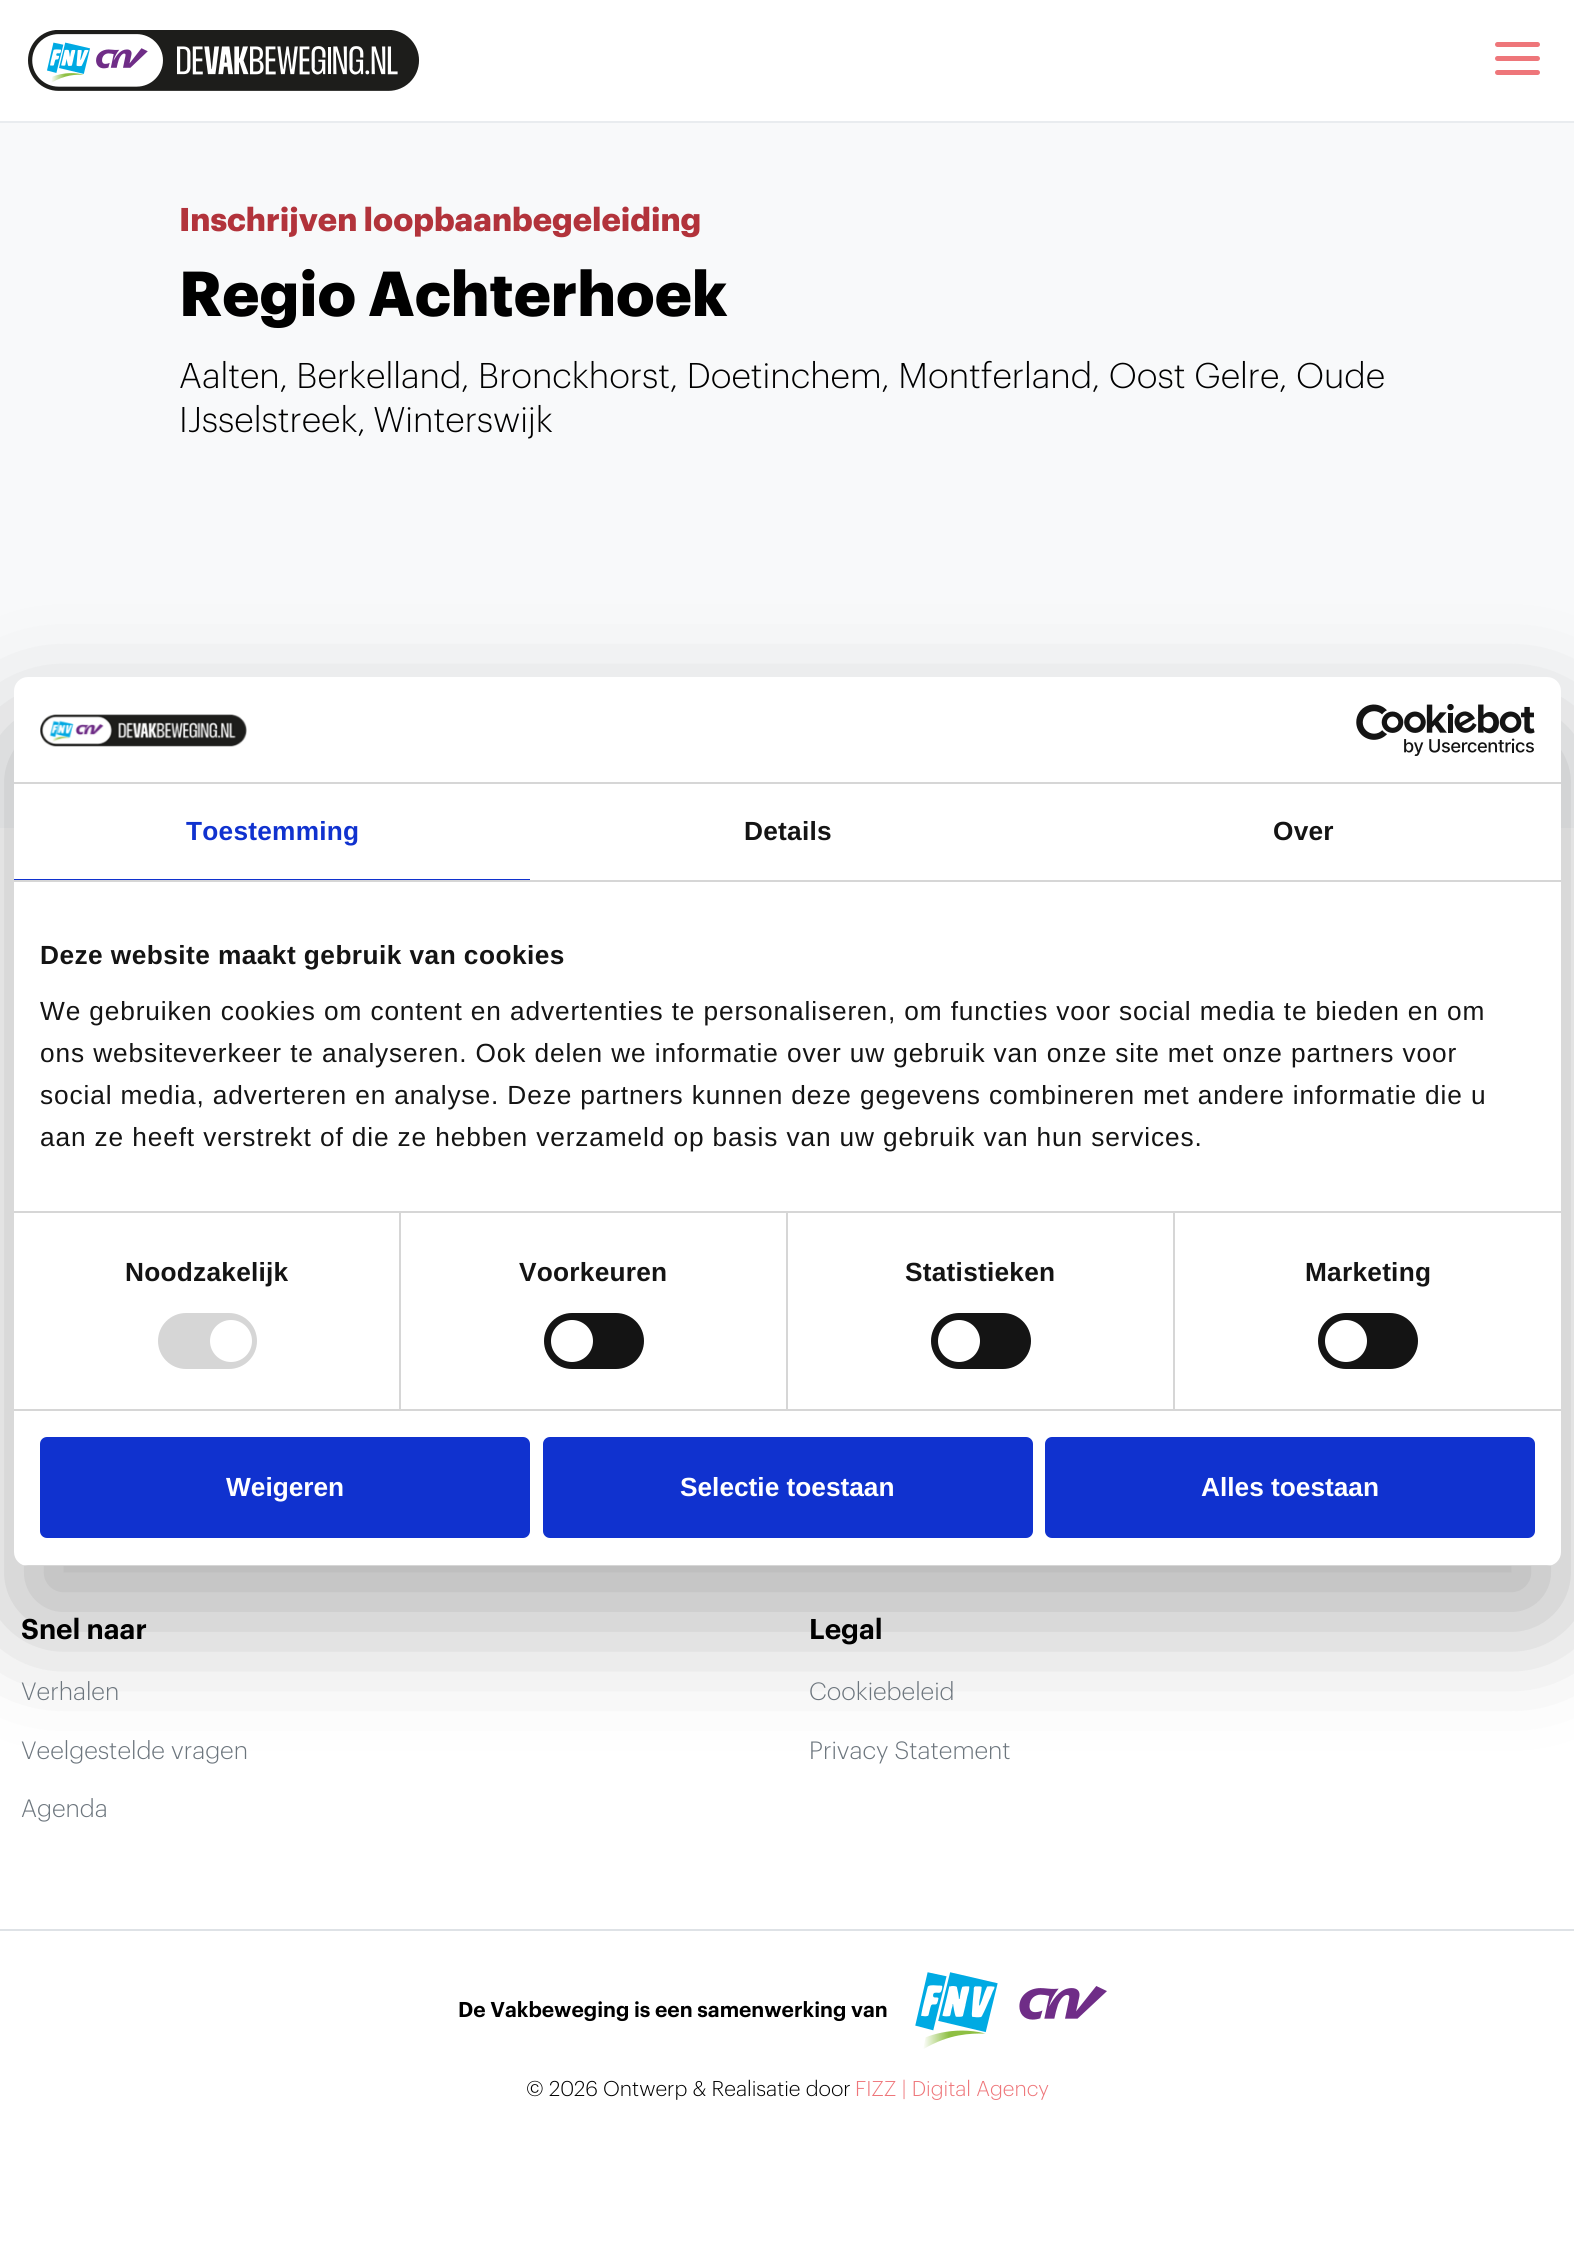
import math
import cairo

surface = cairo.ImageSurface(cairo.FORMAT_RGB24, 1574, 2243)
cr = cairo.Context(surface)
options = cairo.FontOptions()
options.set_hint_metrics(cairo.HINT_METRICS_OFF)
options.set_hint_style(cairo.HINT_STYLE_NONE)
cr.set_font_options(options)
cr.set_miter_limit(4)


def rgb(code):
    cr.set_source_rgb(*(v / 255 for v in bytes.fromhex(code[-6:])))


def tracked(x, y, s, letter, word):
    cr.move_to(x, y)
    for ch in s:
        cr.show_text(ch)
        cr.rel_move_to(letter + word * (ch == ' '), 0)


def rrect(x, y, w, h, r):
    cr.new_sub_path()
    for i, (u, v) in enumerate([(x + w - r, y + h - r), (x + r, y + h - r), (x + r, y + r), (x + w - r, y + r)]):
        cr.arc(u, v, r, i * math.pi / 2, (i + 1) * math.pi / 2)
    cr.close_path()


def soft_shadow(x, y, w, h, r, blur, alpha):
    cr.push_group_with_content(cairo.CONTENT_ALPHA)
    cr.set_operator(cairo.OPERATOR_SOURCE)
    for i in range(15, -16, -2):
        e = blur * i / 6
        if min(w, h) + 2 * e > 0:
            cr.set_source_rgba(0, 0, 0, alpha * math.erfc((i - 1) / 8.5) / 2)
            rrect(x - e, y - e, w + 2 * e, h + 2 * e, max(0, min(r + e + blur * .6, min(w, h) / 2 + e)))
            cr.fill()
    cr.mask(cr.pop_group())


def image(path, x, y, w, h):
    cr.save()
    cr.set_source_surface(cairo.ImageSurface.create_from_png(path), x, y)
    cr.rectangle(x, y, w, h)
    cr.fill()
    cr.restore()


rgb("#ffffff")
cr.paint()
rgb("#e9ecef")
cr.rectangle(0, 121, 1574, 2)
cr.fill()
image("img/1.png", 28, 30, 392, 61)
rgb("#ee767a")
rrect(1495, 56, 45, 5, 2.5)
cr.fill()
rrect(1495, 42, 45, 5, 2.5)
cr.fill()
rrect(1495, 70, 45, 5, 2.5)
cr.fill()
rgb("#f8f9fa")
cr.rectangle(0, 123, 1574, 705)
cr.fill()
rgb("#000000")
soft_shadow(14, 733, 1547, 889, 14, 59.5, 0.3)
rgb("#ffffff")
rrect(14, 677, 1547, 889, 14)
cr.fill()
rgb("#d6d6d6")
cr.rectangle(14, 782, 1547, 2)
cr.fill()
image("img/2.png", 40, 714, 207, 33)
image("img/3.png", 1356, 704, 179, 52)
for x, y, w, h, color in [
    (14, 880, 1547, 2, "#d6d6d6"),
    (14, 879, 516, 1, "#1032cf"),
    (14, 1211, 1547, 2, "#d6d6d6"),
    (14, 1409, 1547, 2, "#d6d6d6"),
    (399, 1213, 2, 196, "#d6d6d6"),
]:
    rgb(color)
    cr.rectangle(x, y, w, h)
    cr.fill()
rrect(158, 1313, 99, 56, 28)
cr.fill()
rgb("#ffffff")
cr.arc(231, 1341, 21, 0, 2 * math.pi)
cr.fill()
rgb("#d6d6d6")
cr.rectangle(786, 1213, 2, 196)
cr.fill()
rgb("#141414")
rrect(544, 1313, 100, 56, 28)
cr.fill()
rgb("#ffffff")
cr.arc(572, 1341, 21, 0, 2 * math.pi)
cr.fill()
rgb("#d6d6d6")
cr.rectangle(1173, 1213, 2, 196)
cr.fill()
rgb("#141414")
rrect(931, 1313, 100, 56, 28)
cr.fill()
rgb("#ffffff")
cr.arc(959, 1341, 21, 0, 2 * math.pi)
cr.fill()
rgb("#141414")
rrect(1318, 1313, 100, 56, 28)
cr.fill()
rgb("#ffffff")
cr.arc(1346, 1341, 21, 0, 2 * math.pi)
cr.fill()
cr.save()
rrect(14, 677, 1547, 889, 14)
cr.clip()
rgb("#d6d6d6")
cr.rectangle(23, 1565, 1529, 1)
cr.fill()
cr.restore()
rgb("#1032cf")
rrect(42, 1439, 486, 97, 5)
cr.fill_preserve()
cr.set_line_width(4)
cr.stroke()
rrect(545, 1439, 486, 97, 5)
cr.fill_preserve()
cr.stroke()
rrect(1047, 1439, 486, 97, 5)
cr.fill_preserve()
cr.stroke()
rgb("#dee2e6")
cr.rectangle(0, 1929, 1574, 2)
cr.fill()
image("img/4.png", 915, 1972, 192, 77)
cr.select_font_face("Graphik", cairo.FONT_SLANT_NORMAL, cairo.FONT_WEIGHT_BOLD)
cr.set_font_size(32.25)
rgb("#b2333b")
cr.move_to(179, 231)
cr.show_text("Inschrijven loopbaanbegeleiding")
cr.set_font_size(62.1)
rgb("#000000")
cr.move_to(179, 316)
cr.show_text("Regio Achterhoek")
cr.select_font_face("Graphik Light")
cr.set_font_size(35)
cr.move_to(179, 388)
cr.show_text("Aalten, Berkelland, Bronckhorst, Doetinchem, Montferland, Oost Gelre, Oude")
tracked(179, 432, "IJsselstreek, Winterswijk", 0, -1)
cr.select_font_face("Liberation Sans", cairo.FONT_SLANT_NORMAL, cairo.FONT_WEIGHT_BOLD)
cr.set_font_size(26.25)
rgb("#1032cf")
tracked(186, 840, "Toestemming", 0.25, 0)
rgb("#141414")
tracked(744, 840, "Details", 0.25, 0)
tracked(1273, 840, "Over", 0.25, 0)
tracked(40, 964, "Deze website maakt gebruik van cookies", 0.45, 0)
cr.select_font_face("Liberation Sans")
for x, y, s in [
    (40, 1020, "We gebruiken cookies om content en advertenties te personaliseren, om functies voor social media te bieden en om"),
    (40, 1062, "ons websiteverkeer te analyseren. Ook delen we informatie over uw gebruik van onze site met onze partners voor"),
    (40, 1104, "social media, adverteren en analyse. Deze partners kunnen deze gegevens combineren met andere informatie die u"),
    (40, 1146, "aan ze heeft verstrekt of die ze hebben verzameld op basis van uw gebruik van hun services."),
]:
    tracked(x, y, s, 0.88, 0)
cr.select_font_face("Liberation Sans", cairo.FONT_SLANT_NORMAL, cairo.FONT_WEIGHT_BOLD)
for x, y, s in [
    (125, 1281, "Noodzakelijk"),
    (519, 1281, "Voorkeuren"),
    (905, 1281, "Statistieken"),
    (1305, 1281, "Marketing"),
]:
    tracked(x, y, s, 0.25, 0)
rgb("#ffffff")
for x, y, s in [
    (226, 1496, "Weigeren"),
    (680, 1496, "Selectie toestaan"),
    (1201, 1496, "Alles toestaan"),
]:
    cr.move_to(x, y)
    cr.show_text(s)
cr.select_font_face("Graphik SemiBold")
cr.set_font_size(28)
rgb("#000000")
cr.move_to(21, 1639)
cr.show_text("Snel naar")
cr.select_font_face("Graphik Light")
cr.set_font_size(24.5)
rgb("#6c757d")
for x, y, s in [
    (21, 1700, "Verhalen"),
    (21, 1759, "Veelgestelde vragen"),
    (21, 1817, "Agenda"),
]:
    cr.move_to(x, y)
    cr.show_text(s)
cr.select_font_face("Graphik SemiBold")
cr.set_font_size(28)
rgb("#000000")
cr.move_to(809, 1639)
cr.show_text("Legal")
cr.select_font_face("Graphik Light")
cr.set_font_size(24.5)
rgb("#6c757d")
cr.move_to(809, 1700)
cr.show_text("Cookiebeleid")
cr.move_to(809, 1759)
cr.show_text("Privacy Statement")
cr.select_font_face("Graphik SemiBold")
cr.set_font_size(21)
rgb("#000000")
cr.move_to(458, 2017)
cr.show_text("De Vakbeweging is een samenwerking van")
cr.select_font_face("Graphik Light")
cr.move_to(526, 2096)
cr.show_text("© 2026 Ontwerp & Realisatie door")
rgb("#ee767a")
cr.move_to(855, 2096)
cr.show_text("FIZZ | Digital Agency")
surface.write_to_png("page.png")
